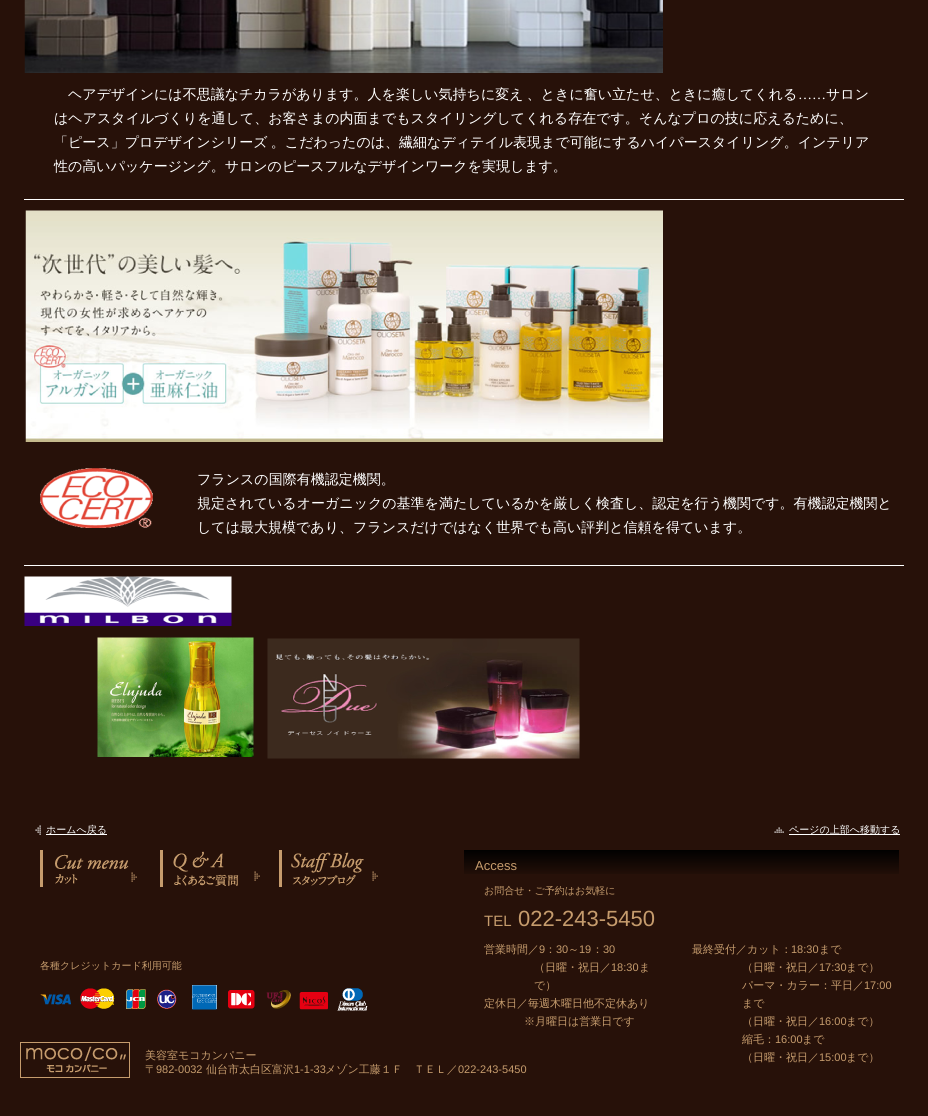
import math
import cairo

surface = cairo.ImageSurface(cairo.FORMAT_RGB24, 928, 1116)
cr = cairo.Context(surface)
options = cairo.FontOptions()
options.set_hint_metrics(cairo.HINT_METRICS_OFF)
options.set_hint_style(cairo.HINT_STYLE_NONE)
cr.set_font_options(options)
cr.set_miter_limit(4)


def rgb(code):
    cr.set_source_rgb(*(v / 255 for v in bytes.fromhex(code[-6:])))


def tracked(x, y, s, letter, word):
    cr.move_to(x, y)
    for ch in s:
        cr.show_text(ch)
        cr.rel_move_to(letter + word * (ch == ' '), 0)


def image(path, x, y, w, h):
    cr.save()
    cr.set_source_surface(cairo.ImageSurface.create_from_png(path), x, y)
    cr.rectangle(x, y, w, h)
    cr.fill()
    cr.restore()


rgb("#271109")
cr.paint()
image("img/1.png", 24, 0, 639, 73)
rgb("#ffffff")
cr.rectangle(24, 199, 880, 1)
cr.fill()
image("img/2.png", 25, 210, 638, 232)
image("img/3.png", 40, 468, 113, 60)
cr.rectangle(24, 565, 880, 1)
cr.fill()
image("img/4.png", 24, 576, 208, 50)
image("img/5.png", 97, 637, 483, 122)
image("img/6.png", 35, 825, 6, 10)
cr.rectangle(46, 834, 61, 1)
cr.fill()
image("img/7.png", 774, 827, 10, 6)
cr.rectangle(789, 834, 111, 1)
cr.fill()
image("img/8.png", 40, 850, 97, 37)
image("img/9.png", 160, 850, 100, 37)
image("img/10.png", 279, 850, 99, 37)
image("img/11.png", 464, 850, 435, 24)
image("img/12.png", 40, 985, 328, 26)
image("img/13.png", 20, 1042, 110, 36)
cr.select_font_face("WenQuanYi Zen Hei Medium")
cr.set_font_size(14)
tracked(68, 99, "ヘアデザインには不思議なチカラがあります。人を楽しい気持ちに変え 、ときに奮い立たせ、ときに癒してくれる", 0, -1)
cr.select_font_face("Liberation Serif")
cr.move_to(798, 99)
cr.show_text("……")
cr.select_font_face("WenQuanYi Zen Hei Medium")
cr.move_to(826, 99)
cr.show_text("サロン")
cr.move_to(54, 123)
cr.show_text("はヘアスタイルづくりを通して、お客さまの内面までもスタイリングしてくれる存在です。そんなプロの技に応えるために、")
tracked(54, 147, "「ピース」プロデザインシリーズ 。こだわったのは、繊細なディテイル表現まで可能にするハイパースタイリング。インテリア", 0, -1)
for x, y, s in [
    (54, 171, "性の高いパッケージング。サロンのピースフルなデザインワークを実現します。"),
    (197, 484, "フランスの国際有機認定機関。"),
    (197, 508, "規定されているオーガニックの基準を満たしているかを厳しく検査し、認定を行う機関です。有機認定機関と"),
    (197, 532, "しては最大規模であり、フランスだけではなく世界でも高い評判と信頼を得ています。"),
]:
    cr.move_to(x, y)
    cr.show_text(s)
cr.set_font_size(10)
cr.move_to(46, 833)
cr.show_text("ホームへ戻る")
cr.move_to(789, 833)
cr.show_text("ページの上部へ移動する")
cr.select_font_face("Liberation Sans")
cr.set_font_size(13)
rgb("#c69c6d")
cr.move_to(475, 870)
cr.show_text("Access")
cr.select_font_face("WenQuanYi Zen Hei Medium")
cr.set_font_size(10)
cr.move_to(484, 894)
cr.show_text("お問合せ・ご予約はお気軽に")
cr.select_font_face("Liberation Sans")
cr.set_font_size(15)
cr.move_to(484, 926)
cr.show_text("TEL")
cr.set_font_size(22)
cr.move_to(518, 926)
cr.show_text("022-243-5450")
cr.select_font_face("WenQuanYi Zen Hei Medium")
cr.set_font_size(11)
cr.move_to(484, 953)
cr.show_text("営業時間／")
cr.select_font_face("Liberation Sans")
cr.move_to(539, 953)
cr.show_text("9")
cr.select_font_face("WenQuanYi Zen Hei Medium")
cr.move_to(545, 953)
cr.show_text("：")
cr.select_font_face("Liberation Sans")
cr.move_to(556, 953)
cr.show_text("30")
cr.select_font_face("WenQuanYi Zen Hei Medium")
cr.move_to(568, 953)
cr.show_text("～")
cr.select_font_face("Liberation Sans")
cr.move_to(579, 953)
cr.show_text("19")
cr.select_font_face("WenQuanYi Zen Hei Medium")
cr.move_to(592, 953)
cr.show_text("：")
cr.select_font_face("Liberation Sans")
cr.move_to(603, 953)
cr.show_text("30")
cr.select_font_face("WenQuanYi Zen Hei Medium")
cr.move_to(534, 971)
cr.show_text("（日曜・祝日／")
cr.select_font_face("Liberation Sans")
cr.move_to(611, 971)
cr.show_text("18:30")
cr.select_font_face("WenQuanYi Zen Hei Medium")
for x, y, s in [
    (639, 971, "ま"),
    (534, 989, "で）"),
    (484, 1007, "定休日／毎週木曜日他不定休あり"),
    (524, 1025, "※月曜日は営業日です"),
    (692, 953, "最終受付／カット："),
]:
    cr.move_to(x, y)
    cr.show_text(s)
cr.select_font_face("Liberation Sans")
cr.move_to(791, 953)
cr.show_text("18:30")
cr.select_font_face("WenQuanYi Zen Hei Medium")
cr.move_to(819, 953)
cr.show_text("まで")
cr.move_to(742, 971)
cr.show_text("（日曜・祝日／")
cr.select_font_face("Liberation Sans")
cr.move_to(819, 971)
cr.show_text("17:30")
cr.select_font_face("WenQuanYi Zen Hei Medium")
cr.move_to(846, 971)
cr.show_text("まで）")
cr.move_to(742, 989)
cr.show_text("パーマ・カラー：平日／")
cr.select_font_face("Liberation Sans")
cr.move_to(864, 989)
cr.show_text("17:00")
cr.select_font_face("WenQuanYi Zen Hei Medium")
cr.move_to(742, 1007)
cr.show_text("まで")
cr.move_to(742, 1025)
cr.show_text("（日曜・祝日／")
cr.select_font_face("Liberation Sans")
cr.move_to(819, 1025)
cr.show_text("16:00")
cr.select_font_face("WenQuanYi Zen Hei Medium")
cr.move_to(846, 1025)
cr.show_text("まで）")
cr.move_to(742, 1043)
cr.show_text("縮毛：")
cr.select_font_face("Liberation Sans")
cr.move_to(775, 1043)
cr.show_text("16:00")
cr.select_font_face("WenQuanYi Zen Hei Medium")
cr.move_to(802, 1043)
cr.show_text("まで")
cr.move_to(742, 1061)
cr.show_text("（日曜・祝日／")
cr.select_font_face("Liberation Sans")
cr.move_to(819, 1061)
cr.show_text("15:00")
cr.select_font_face("WenQuanYi Zen Hei Medium")
cr.move_to(846, 1061)
cr.show_text("まで）")
cr.set_font_size(10)
cr.move_to(40, 969)
cr.show_text("各種クレジットカード利用可能")
cr.set_font_size(11)
cr.move_to(145, 1059)
cr.show_text("美容室モコカンパニー")
cr.move_to(145, 1073)
cr.show_text("〒")
cr.select_font_face("Liberation Sans")
cr.move_to(156, 1073)
cr.show_text("982-0032")
cr.select_font_face("WenQuanYi Zen Hei Medium")
cr.move_to(206, 1073)
cr.show_text("仙台市太白区富沢")
cr.select_font_face("Liberation Sans")
cr.move_to(294, 1073)
cr.show_text("1-1-33")
cr.select_font_face("WenQuanYi Zen Hei Medium")
cr.move_to(325, 1073)
cr.show_text("メゾン工藤１Ｆ　ＴＥＬ／")
cr.select_font_face("Liberation Sans")
cr.move_to(458, 1073)
cr.show_text("022-243-5450")
surface.write_to_png("page.png")
